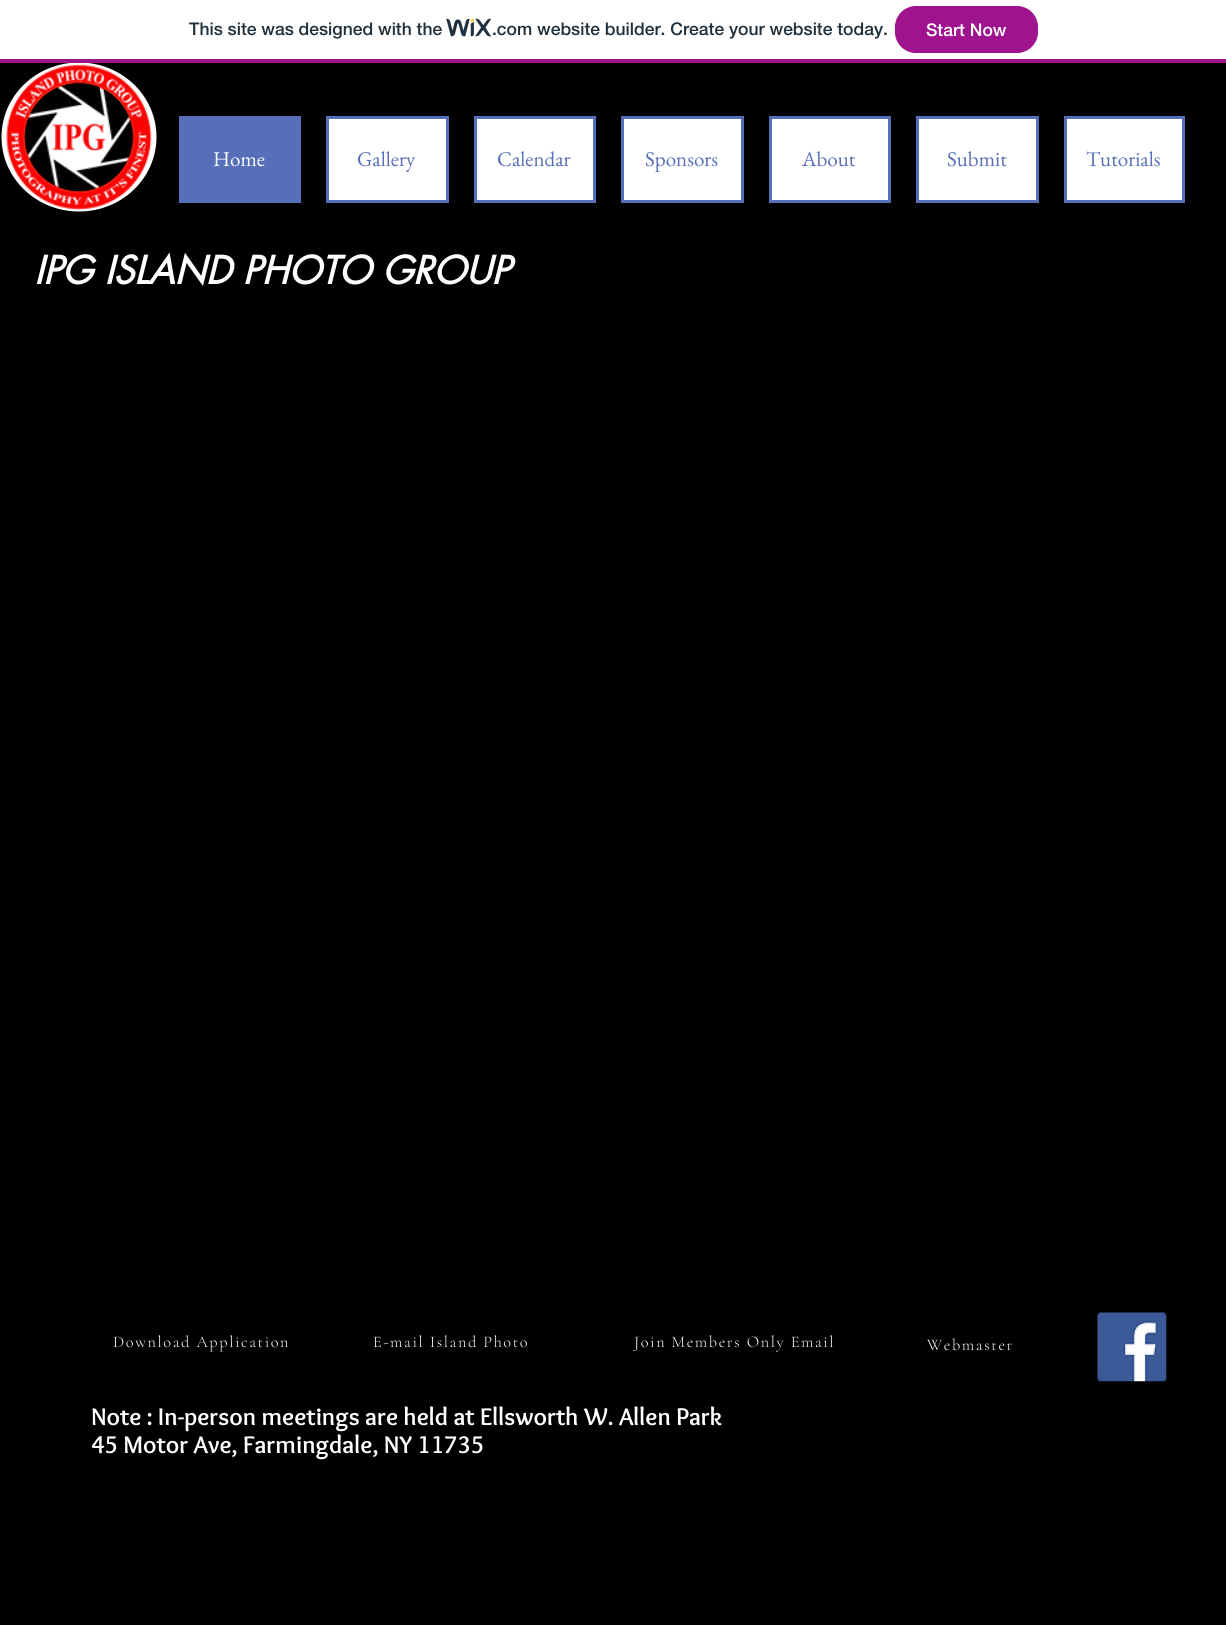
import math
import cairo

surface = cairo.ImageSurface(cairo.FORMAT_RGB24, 1226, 1625)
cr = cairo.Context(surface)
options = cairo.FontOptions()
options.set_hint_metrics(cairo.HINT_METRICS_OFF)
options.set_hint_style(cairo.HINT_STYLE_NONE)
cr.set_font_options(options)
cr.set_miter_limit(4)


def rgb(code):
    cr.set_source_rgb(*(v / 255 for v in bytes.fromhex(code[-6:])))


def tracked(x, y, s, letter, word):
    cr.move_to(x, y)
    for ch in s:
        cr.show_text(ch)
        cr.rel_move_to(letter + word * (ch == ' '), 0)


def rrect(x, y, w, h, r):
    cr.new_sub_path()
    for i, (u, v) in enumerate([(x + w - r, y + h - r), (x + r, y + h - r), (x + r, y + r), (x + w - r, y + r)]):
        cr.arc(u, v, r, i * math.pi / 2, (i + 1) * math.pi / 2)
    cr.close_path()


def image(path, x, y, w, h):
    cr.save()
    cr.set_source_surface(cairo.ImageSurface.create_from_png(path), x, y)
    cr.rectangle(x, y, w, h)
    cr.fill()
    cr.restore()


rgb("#ffffff")
cr.paint()
rgb("#000000")
cr.rectangle(0, 63, 1226, 1562)
cr.fill()
rgb("#ffffff")
cr.new_path()
cr.move_to(79, 62.5)
cr.curve_to(122, 62.5, 156.5, 96, 156.5, 137)
cr.curve_to(156.5, 178, 122, 211.5, 79, 211.5)
cr.curve_to(36, 211.5, 1.5, 178, 1.5, 137)
cr.curve_to(1.5, 96, 36, 62.5, 79, 62.5)
cr.close_path()
cr.fill()
rgb("#a0138e")
cr.rectangle(0, 59, 1226, 4)
cr.fill()
image("img/1.png", 446, 18, 45, 19)
rrect(895.5, 6.5, 142, 46, 20.5)
cr.fill_preserve()
cr.set_line_width(1)
cr.stroke()
image("img/2.png", 6, 64, 146, 147)
rgb("#566fb8")
cr.rectangle(179, 116, 122, 87)
cr.fill()
rgb("#ffffff")
cr.rectangle(327.5, 117.5, 120, 84)
cr.fill_preserve()
rgb("#566fb8")
cr.set_line_width(3)
cr.stroke()
rgb("#ffffff")
cr.rectangle(475.5, 117.5, 119, 84)
cr.fill_preserve()
rgb("#566fb8")
cr.stroke()
rgb("#ffffff")
cr.rectangle(622.5, 117.5, 120, 84)
cr.fill_preserve()
rgb("#566fb8")
cr.stroke()
rgb("#ffffff")
cr.rectangle(770.5, 117.5, 119, 84)
cr.fill_preserve()
rgb("#566fb8")
cr.stroke()
rgb("#ffffff")
cr.rectangle(917.5, 117.5, 120, 84)
cr.fill_preserve()
rgb("#566fb8")
cr.stroke()
rgb("#ffffff")
cr.rectangle(1065.5, 117.5, 118, 84)
cr.fill_preserve()
rgb("#566fb8")
cr.stroke()
image("img/3.png", 1097, 1312, 70, 70)
cr.select_font_face("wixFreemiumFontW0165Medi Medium")
cr.set_font_size(17.5)
rgb("#20303c")
cr.move_to(189, 35)
cr.show_text("This site was designed with the")
cr.move_to(492, 35)
cr.show_text(".com website builder. Create your website today.")
rgb("#ffffff")
cr.move_to(926, 36)
cr.show_text("Start Now")
cr.select_font_face("EB Garamond")
cr.set_font_size(21)
cr.move_to(213, 166)
cr.show_text("Home")
rgb("#566fb8")
for x, y, s in [
    (357, 166, "Gallery"),
    (497, 166, "Calendar"),
    (645, 166, "Sponsors"),
    (802, 166, "About"),
    (947, 166, "Submit"),
    (1086, 166, "Tutorials"),
]:
    cr.move_to(x, y)
    cr.show_text(s)
cr.select_font_face("futura", cairo.FONT_SLANT_ITALIC, cairo.FONT_WEIGHT_BOLD)
cr.set_font_size(37.5)
rgb("#ffffff")
cr.move_to(34, 284)
cr.show_text("IPG ISLAND PHOTO GROUP")
cr.select_font_face("Cormorant Garamond Light")
cr.set_font_size(16.25)
for x, y, s in [
    (113, 1347, "Download Application"),
    (373, 1347, "E-mail Island Photo"),
    (634, 1347, "Join Members Only Email"),
    (927, 1350, "Webmaster"),
]:
    tracked(x, y, s, 1.6, 0)
cr.select_font_face("Overlock", cairo.FONT_SLANT_NORMAL, cairo.FONT_WEIGHT_BOLD)
cr.set_font_size(25)
cr.move_to(91, 1425)
cr.show_text("Note : In-person meetings are held at Ellsworth W. Allen Park")
cr.move_to(91, 1453)
cr.show_text("45 Motor Ave, Farmingdale, NY 11735")
surface.write_to_png("page.png")
